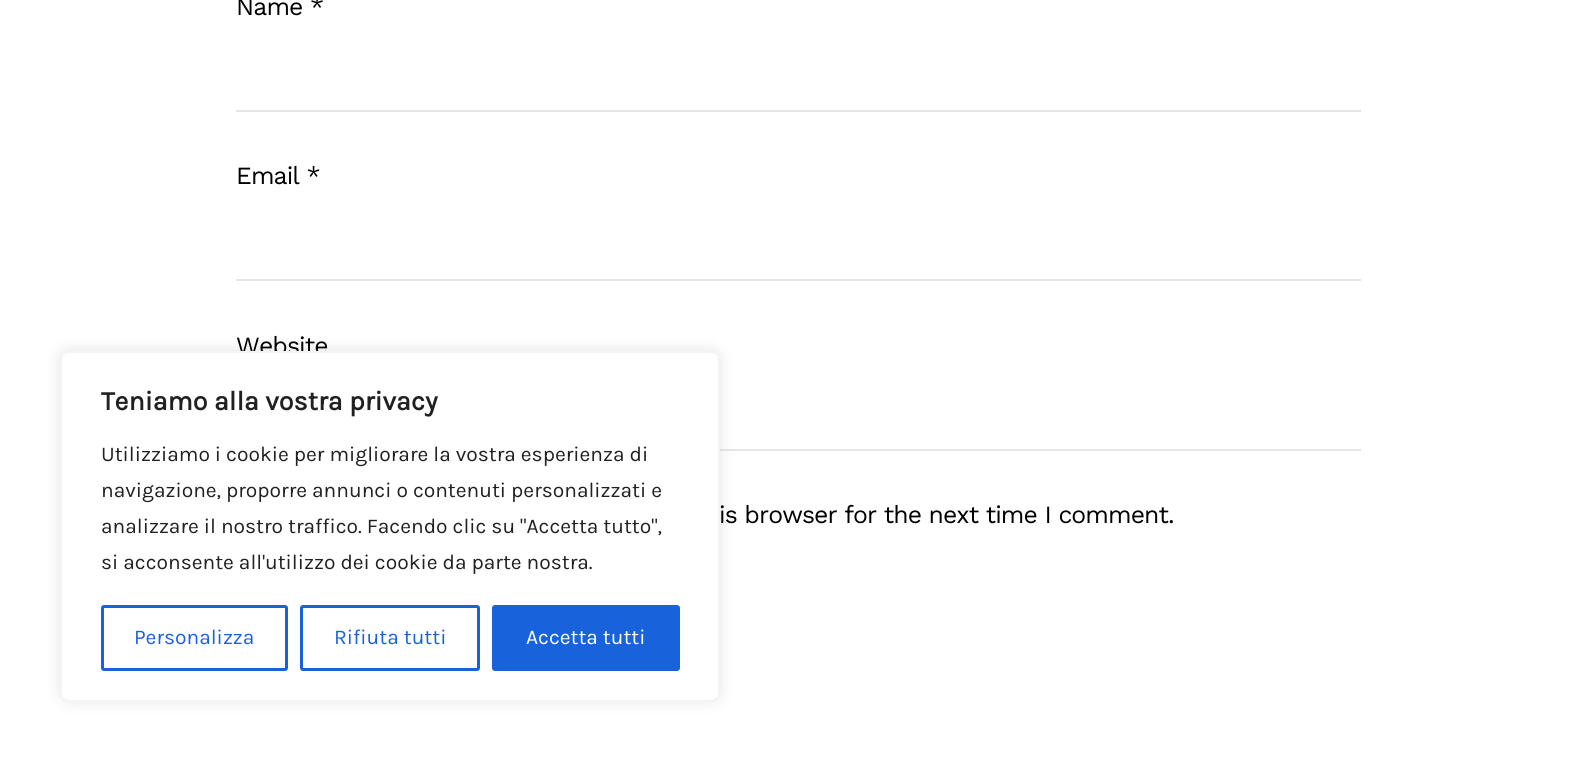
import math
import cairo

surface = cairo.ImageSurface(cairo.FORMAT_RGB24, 1596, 761)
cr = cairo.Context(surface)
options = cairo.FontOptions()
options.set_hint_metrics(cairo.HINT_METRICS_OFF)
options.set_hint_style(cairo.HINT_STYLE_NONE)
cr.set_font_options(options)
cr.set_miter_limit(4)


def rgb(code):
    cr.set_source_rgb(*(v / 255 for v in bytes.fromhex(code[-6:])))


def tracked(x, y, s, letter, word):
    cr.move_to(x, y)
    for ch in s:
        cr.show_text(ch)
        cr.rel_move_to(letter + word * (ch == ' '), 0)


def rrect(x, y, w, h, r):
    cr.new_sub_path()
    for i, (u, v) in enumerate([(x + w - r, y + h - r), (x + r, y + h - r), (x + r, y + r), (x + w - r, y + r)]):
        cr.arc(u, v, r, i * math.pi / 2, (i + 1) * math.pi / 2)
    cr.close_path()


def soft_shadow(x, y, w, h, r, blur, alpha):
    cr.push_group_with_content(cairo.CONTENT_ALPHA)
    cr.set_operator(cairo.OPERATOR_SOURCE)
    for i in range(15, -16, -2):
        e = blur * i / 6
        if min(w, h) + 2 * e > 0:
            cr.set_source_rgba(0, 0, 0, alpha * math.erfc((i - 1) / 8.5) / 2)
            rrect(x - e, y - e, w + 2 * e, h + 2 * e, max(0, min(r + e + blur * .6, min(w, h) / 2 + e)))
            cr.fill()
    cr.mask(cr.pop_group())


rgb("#ffffff")
cr.paint()
for x, y, w, h, color in [
    (236, 110, 1125, 2, "#e5e5e5"),
    (236, 279, 1125, 2, "#e5e5e5"),
    (720, 449, 641, 2, "#e5e5e5"),
]:
    rgb(color)
    cr.rectangle(x, y, w, h)
    cr.fill()
rgb("#acabab")
soft_shadow(60, 350, 660, 351, 9, 7.5, 0.3)
cr.select_font_face("Work Sans")
cr.set_font_size(24.75)
rgb("#000000")
for x, y, s in [
    (236, 15, "Name *"),
    (236, 184, "Email *"),
    (236, 354, "Website"),
    (719, 523, "is browser for the next time I comment."),
]:
    tracked(x, y, s, -0.9, 0)
rgb("#ffffff")
rrect(61, 352, 658, 349, 8)
cr.fill_preserve()
rgb("#f4f4f4")
cr.stroke()
cr.select_font_face("Karla", cairo.FONT_SLANT_NORMAL, cairo.FONT_WEIGHT_BOLD)
cr.set_font_size(27)
rgb("#212121")
cr.move_to(101, 410)
cr.show_text("Teniamo alla vostra privacy")
cr.select_font_face("Karla")
cr.set_font_size(21)
for x, y, s in [
    (101, 461, "Utilizziamo i cookie per migliorare la vostra esperienza di"),
    (101, 497, "navigazione, proporre annunci o contenuti personalizzati e"),
    (101, 533, "analizzare il nostro traffico. Facendo clic su \"Accetta tutto\","),
    (101, 569, "si acconsente all'utilizzo dei cookie da parte nostra."),
]:
    cr.move_to(x, y)
    cr.show_text(s)
rrect(102.5, 606.5, 184, 63, 1.5)
rgb("#1863dc")
cr.set_line_width(3)
cr.stroke()
cr.move_to(134, 644)
cr.show_text("Personalizza")
rrect(301.5, 606.5, 177, 63, 1.5)
cr.stroke()
cr.move_to(334, 644)
cr.show_text("Rifiuta tutti")
rrect(493.5, 606.5, 185, 63, 1.5)
cr.fill_preserve()
cr.stroke()
rgb("#ffffff")
cr.move_to(526, 644)
cr.show_text("Accetta tutti")
surface.write_to_png("page.png")
